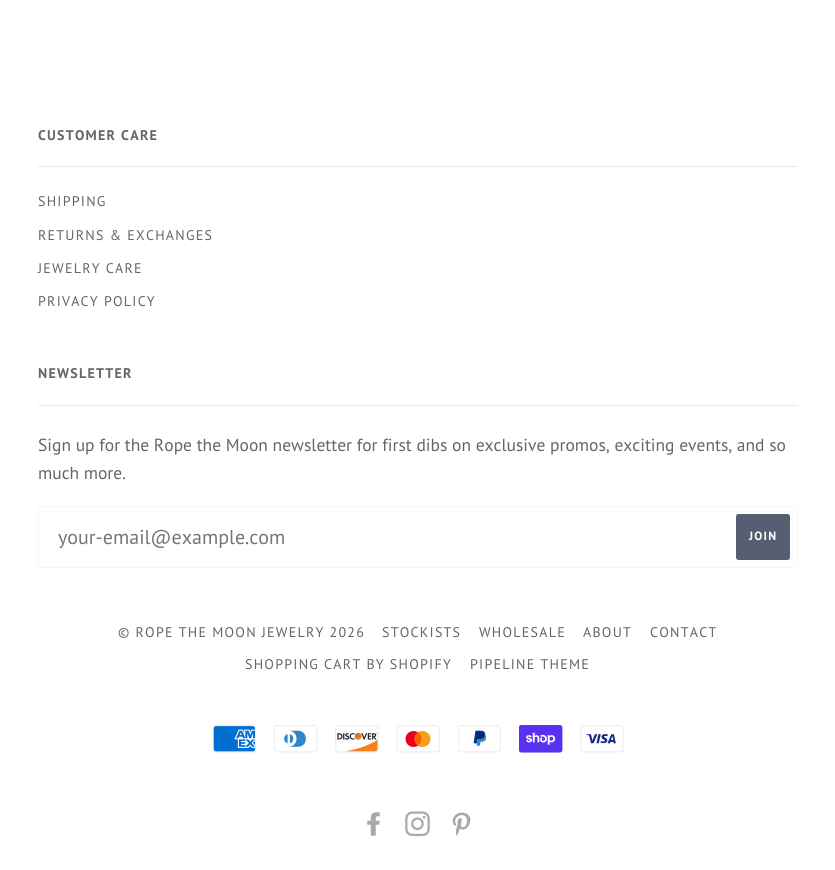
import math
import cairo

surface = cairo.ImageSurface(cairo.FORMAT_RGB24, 835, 870)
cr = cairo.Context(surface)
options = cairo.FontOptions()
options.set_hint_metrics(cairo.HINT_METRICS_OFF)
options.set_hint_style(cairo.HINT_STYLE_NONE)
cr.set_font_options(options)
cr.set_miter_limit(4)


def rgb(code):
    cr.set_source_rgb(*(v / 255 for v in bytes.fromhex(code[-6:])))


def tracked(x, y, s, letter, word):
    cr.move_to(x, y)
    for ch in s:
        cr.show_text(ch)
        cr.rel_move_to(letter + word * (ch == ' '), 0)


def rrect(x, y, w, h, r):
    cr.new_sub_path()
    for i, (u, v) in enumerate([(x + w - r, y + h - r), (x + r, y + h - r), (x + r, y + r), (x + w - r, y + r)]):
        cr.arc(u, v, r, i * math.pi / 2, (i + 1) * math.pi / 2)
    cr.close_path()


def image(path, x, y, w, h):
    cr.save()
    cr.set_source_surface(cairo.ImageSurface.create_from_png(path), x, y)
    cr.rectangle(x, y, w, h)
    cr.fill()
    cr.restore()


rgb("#ffffff")
cr.paint()
rgb("#e8e8e8")
cr.rectangle(38, 166, 760, 1)
cr.fill()
cr.rectangle(38, 405, 760, 1)
cr.fill()
rrect(38.5, 506.5, 759, 61, 2)
rgb("#f7f7f7")
cr.set_line_width(1)
cr.stroke()
rgb("#585e71")
rrect(736, 514, 54, 46, 2.5)
cr.fill()
image("img/1.png", 213, 725, 43, 28)
image("img/2.png", 274, 725, 44, 28)
image("img/3.png", 335, 725, 44, 28)
image("img/4.png", 396, 725, 44, 28)
image("img/5.png", 458, 725, 43, 28)
image("img/6.png", 519, 725, 44, 28)
image("img/7.png", 580, 725, 44, 28)
image("img/8.png", 367, 812, 13, 24)
image("img/9.png", 405, 811, 25, 26)
image("img/10.png", 452, 812, 19, 24)
cr.select_font_face("PT Sans", cairo.FONT_SLANT_NORMAL, cairo.FONT_WEIGHT_BOLD)
cr.set_font_size(14)
rgb("#656565")
tracked(38, 140, "CUSTOMER CARE", 1.25, 0)
cr.select_font_face("PT Sans")
for x, y, s in [
    (38, 206, "SHIPPING"),
    (38, 240, "RETURNS & EXCHANGES"),
    (38, 273, "JEWELRY CARE"),
    (38, 306, "PRIVACY POLICY"),
]:
    tracked(x, y, s, 1.25, 0)
cr.select_font_face("PT Sans", cairo.FONT_SLANT_NORMAL, cairo.FONT_WEIGHT_BOLD)
tracked(38, 378, "NEWSLETTER", 1.25, 0)
cr.select_font_face("PT Sans")
cr.set_font_size(17.5)
cr.move_to(38, 451)
cr.show_text("Sign up for the Rope the Moon newsletter for first dibs on exclusive promos, exciting events, and so")
cr.move_to(38, 479)
cr.show_text("much more.")
cr.set_font_size(20)
rgb("#757575")
cr.move_to(58, 544)
cr.show_text("your-email@example.com")
cr.select_font_face("PT Sans", cairo.FONT_SLANT_NORMAL, cairo.FONT_WEIGHT_BOLD)
cr.set_font_size(12)
rgb("#ffffff")
tracked(749, 540, "JOIN", 1.25, 0)
cr.select_font_face("PT Sans")
cr.set_font_size(14)
rgb("#656565")
for x, y, s in [
    (118, 637, "© ROPE THE MOON JEWELRY 2026"),
    (382, 637, "STOCKISTS"),
    (479, 637, "WHOLESALE"),
    (583, 637, "ABOUT"),
    (650, 637, "CONTACT"),
    (245, 669, "SHOPPING CART BY SHOPIFY"),
    (470, 669, "PIPELINE THEME"),
]:
    tracked(x, y, s, 1.25, 0)
surface.write_to_png("page.png")
